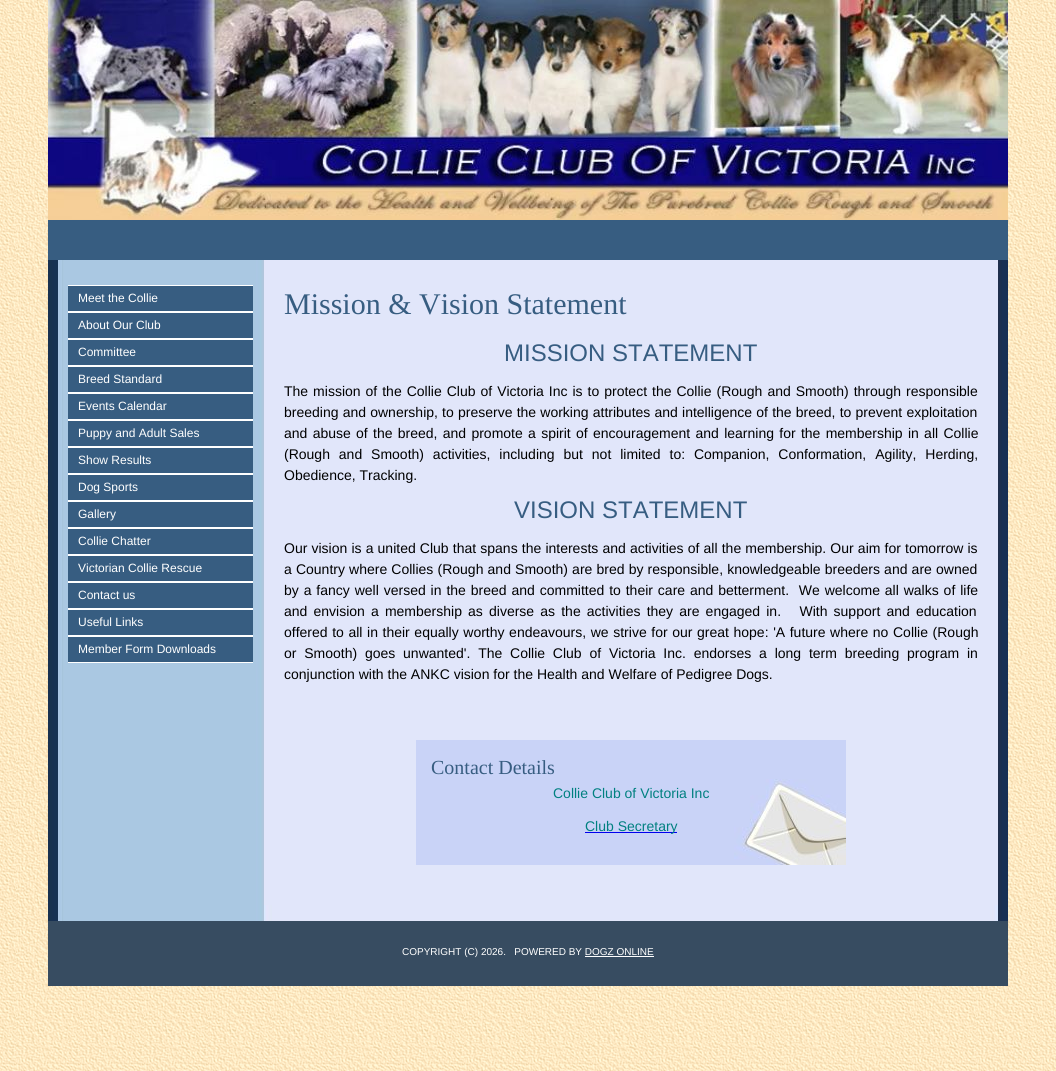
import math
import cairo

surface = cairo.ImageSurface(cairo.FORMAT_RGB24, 1056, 1071)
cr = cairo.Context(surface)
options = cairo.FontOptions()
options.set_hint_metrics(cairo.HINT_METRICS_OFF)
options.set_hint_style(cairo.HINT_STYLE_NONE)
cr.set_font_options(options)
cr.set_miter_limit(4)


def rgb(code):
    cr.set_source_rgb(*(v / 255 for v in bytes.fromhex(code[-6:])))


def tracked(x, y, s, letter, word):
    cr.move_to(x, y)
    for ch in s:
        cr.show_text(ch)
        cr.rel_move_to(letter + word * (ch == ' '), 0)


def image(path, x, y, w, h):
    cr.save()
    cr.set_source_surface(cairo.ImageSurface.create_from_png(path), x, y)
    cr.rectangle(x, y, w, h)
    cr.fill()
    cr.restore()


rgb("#ffffff")
cr.paint()
image("img/1.png", 0, 0, 1056, 1071)
image("img/2.png", 48, 0, 960, 220)
rgb("#375d81")
cr.rectangle(48, 220, 960, 40)
cr.fill()
image("img/3.png", 48, 260, 960, 661)
for x, y, w, h, color in [
    (68, 286, 185, 376, "#375d81"),
    (68, 285, 185, 1, "#ffffff"),
    (68, 311, 185, 2, "#ffffff"),
    (68, 338, 185, 2, "#ffffff"),
    (68, 365, 185, 2, "#ffffff"),
    (68, 392, 185, 2, "#ffffff"),
    (68, 419, 185, 2, "#ffffff"),
    (68, 446, 185, 2, "#ffffff"),
    (68, 473, 185, 2, "#ffffff"),
    (68, 500, 185, 2, "#ffffff"),
    (68, 527, 185, 2, "#ffffff"),
    (68, 554, 185, 2, "#ffffff"),
    (68, 581, 185, 2, "#ffffff"),
    (68, 608, 185, 2, "#ffffff"),
    (68, 635, 185, 2, "#ffffff"),
    (68, 662, 185, 1, "#ffffff"),
    (264, 260, 734, 645, "#e1e6fa"),
    (416, 740, 430, 125, "#c9d3f7"),
]:
    rgb(color)
    cr.rectangle(x, y, w, h)
    cr.fill()
image("img/4.png", 734, 779, 112, 86)
for x, y, w, h, color in [
    (585, 832, 92, 1, "#0000ee"),
    (48, 921, 960, 65, "#374c61"),
    (585, 956, 69, 1, "#ffffff"),
]:
    rgb(color)
    cr.rectangle(x, y, w, h)
    cr.fill()
cr.select_font_face("Liberation Sans")
cr.set_font_size(12)
for x, y, s in [
    (78, 302, "Meet the Collie"),
    (78, 329, "About Our Club"),
    (78, 356, "Committee"),
    (78, 383, "Breed Standard"),
    (78, 410, "Events Calendar"),
    (78, 437, "Puppy and Adult Sales"),
    (78, 464, "Show Results"),
    (78, 491, "Dog Sports"),
    (78, 518, "Gallery"),
    (78, 545, "Collie Chatter"),
    (78, 572, "Victorian Collie Rescue"),
    (78, 599, "Contact us"),
    (78, 626, "Useful Links"),
    (78, 653, "Member Form Downloads"),
]:
    cr.move_to(x, y)
    cr.show_text(s)
cr.select_font_face("Liberation Serif")
cr.set_font_size(30)
rgb("#375d81")
cr.move_to(284, 314)
cr.show_text("Mission & Vision Statement")
cr.select_font_face("Liberation Sans")
cr.set_font_size(24)
cr.move_to(504, 361)
cr.show_text("MISSION STATEMENT")
cr.set_font_size(14)
rgb("#000000")
tracked(284, 396, "The mission of the Collie Club of Victoria Inc is to protect the Collie (Rough and Smooth) through responsible", 0, 1.1)
tracked(284, 417, "breeding and ownership, to preserve the working attributes and intelligence of the breed, to prevent exploitation", 0, 0.3)
tracked(284, 438, "and abuse of the breed, and promote a spirit of encouragement and learning for the membership in all Collie", 0, 1.4)
tracked(284, 459, "(Rough and Smooth) activities, including but not limited to: Companion, Conformation, Agility, Herding,", 0, 5)
cr.move_to(284, 480)
cr.show_text("Obedience, Tracking.")
cr.set_font_size(24)
rgb("#375d81")
cr.move_to(514, 518)
cr.show_text("VISION STATEMENT")
cr.set_font_size(14)
rgb("#000000")
tracked(284, 553, "Our vision is a united Club that spans the interests and activities of all the membership. Our aim for tomorrow is", 0, 0.25)
tracked(284, 574, "a Country where Collies (Rough and Smooth) are bred by responsible, knowledgeable breeders and are owned", 0, 0.25)
tracked(284, 595, "by a fancy well versed in the breed and committed to their care and betterment.  We welcome all walks of life", 0, 1)
tracked(284, 616, "and envision a membership as diverse as the activities they are engaged in.   With support and education", 0, 2.25)
tracked(284, 637, "offered to all in their equally worthy endeavours, we strive for our great hope: 'A future where no Collie (Rough", 0, 0.7)
tracked(284, 658, "or Smooth) goes unwanted'. The Collie Club of Victoria Inc. endorses a long term breeding program in", 0, 3.9)
cr.move_to(284, 679)
cr.show_text("conjunction with the ANKC vision for the Health and Welfare of Pedigree Dogs.")
cr.select_font_face("Liberation Serif")
cr.set_font_size(20)
rgb("#375d81")
cr.move_to(431, 774)
cr.show_text("Contact Details")
cr.select_font_face("Liberation Sans")
cr.set_font_size(14)
rgb("#008080")
cr.move_to(553, 798)
cr.show_text("Collie Club of Victoria Inc")
cr.move_to(585, 831)
cr.show_text("Club Secretary")
cr.set_font_size(10)
rgb("#ffffff")
cr.move_to(402, 955)
cr.show_text("COPYRIGHT (C) 2026.   POWERED BY DOGZ ONLINE")
surface.write_to_png("page.png")
